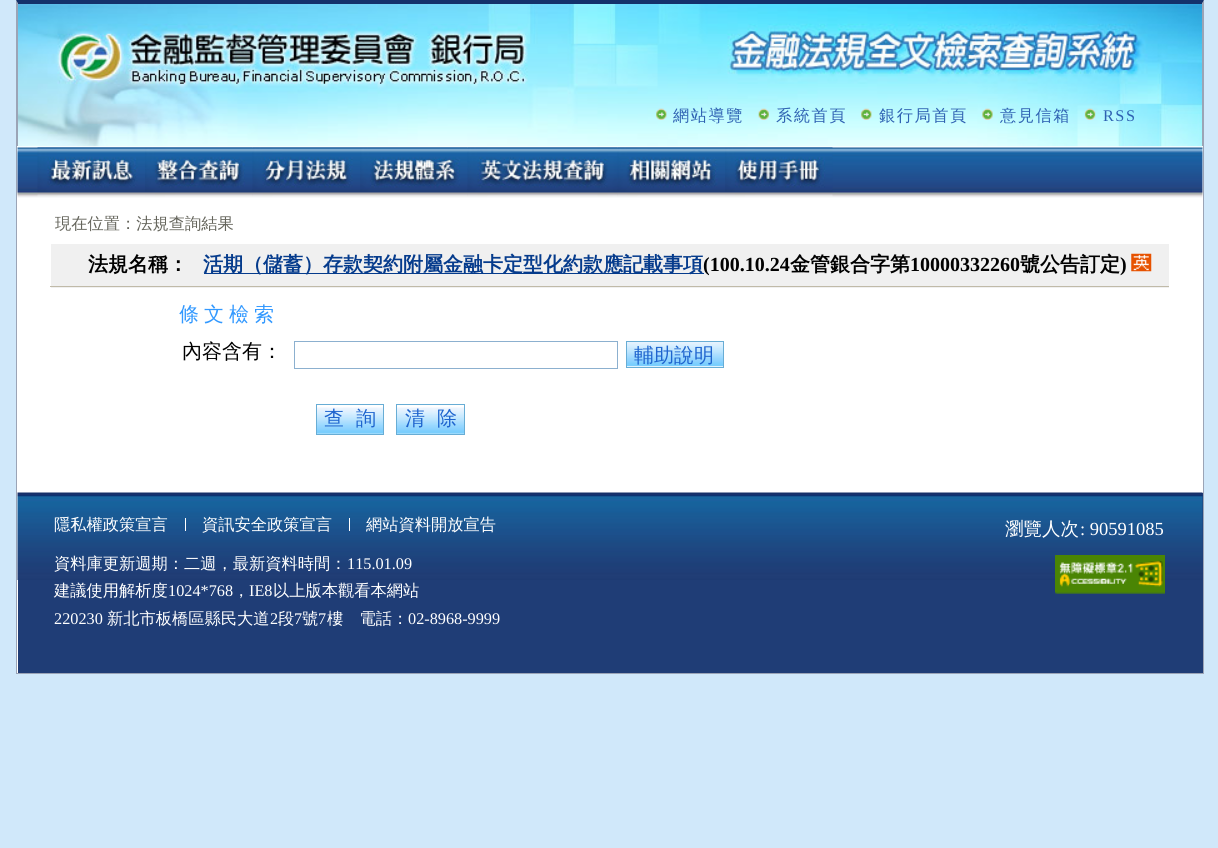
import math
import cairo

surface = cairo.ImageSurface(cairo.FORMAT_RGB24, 1218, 848)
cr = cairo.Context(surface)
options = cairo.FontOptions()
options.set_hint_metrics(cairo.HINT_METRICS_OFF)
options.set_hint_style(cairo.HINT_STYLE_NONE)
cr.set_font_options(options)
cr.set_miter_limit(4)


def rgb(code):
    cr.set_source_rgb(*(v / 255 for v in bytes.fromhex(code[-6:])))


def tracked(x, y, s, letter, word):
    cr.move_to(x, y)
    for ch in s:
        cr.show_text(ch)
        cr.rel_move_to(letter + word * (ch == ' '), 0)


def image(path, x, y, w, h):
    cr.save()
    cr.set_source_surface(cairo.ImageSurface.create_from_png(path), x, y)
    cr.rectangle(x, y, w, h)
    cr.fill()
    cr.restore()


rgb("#d0e8fa")
cr.paint()
for x, y, w, h, color in [
    (17, 2, 1186, 671, "#ffffff"),
    (1203, 0, 1, 674, "#9ba4b6"),
    (16, 673, 1188, 1, "#9ba4b6"),
    (16, 0, 1, 674, "#9ba4b6"),
]:
    rgb(color)
    cr.rectangle(x, y, w, h)
    cr.fill()
image("img/1.png", 17, 3, 1186, 144)
rgb("#14316b")
cr.new_path()
cr.move_to(16, 0)
cr.line_to(1204, 0)
cr.line_to(1202, 4)
cr.line_to(18, 4)
cr.close_path()
cr.fill()
rgb("#9ba4b6")
cr.new_path()
cr.move_to(1204, 0)
cr.line_to(1204, 146)
cr.line_to(1202, 146)
cr.line_to(1202, 4)
cr.close_path()
cr.fill()
cr.new_path()
cr.move_to(16, 146)
cr.line_to(16, 0)
cr.line_to(18, 4)
cr.line_to(18, 146)
cr.close_path()
cr.fill()
image("img/2.png", 656, 108, 11, 12)
image("img/3.png", 758, 108, 11, 12)
image("img/4.png", 861, 108, 11, 12)
image("img/5.png", 982, 108, 11, 12)
image("img/6.png", 1084, 108, 12, 12)
image("img/7.png", 17, 147, 1186, 51)
image("img/8.png", 37, 147, 108, 50)
image("img/9.png", 145, 147, 108, 50)
image("img/10.png", 252, 147, 108, 50)
image("img/11.png", 360, 147, 108, 50)
image("img/12.png", 467, 147, 151, 50)
image("img/13.png", 617, 147, 108, 50)
image("img/14.png", 725, 147, 108, 50)
for x, y, w, h, color in [
    (51, 244, 1118, 44, "#f0f0f0"),
    (50, 286, 1119, 1, "#c0baa8"),
    (204, 273, 500, 1, "#053b8c"),
]:
    rgb(color)
    cr.rectangle(x, y, w, h)
    cr.fill()
image("img/15.png", 1131, 253, 21, 19)
cr.rectangle(294.5, 341.5, 323, 27)
rgb("#8cb0cf")
cr.set_line_width(1)
cr.stroke()
image("img/16.png", 627, 342, 96, 25)
cr.rectangle(626.5, 341.5, 97, 26)
rgb("#68add5")
cr.stroke()
image("img/17.png", 317, 407, 66, 27)
cr.rectangle(316.5, 404.5, 67, 30)
cr.stroke()
image("img/18.png", 397, 407, 67, 27)
cr.rectangle(396.5, 404.5, 68, 30)
cr.stroke()
rgb("#1f3d76")
cr.rectangle(18, 493, 1185, 180)
cr.fill()
image("img/19.png", 17, 492, 1186, 88)
rgb("#ffffff")
cr.rectangle(185, 518, 1, 13)
cr.fill()
cr.rectangle(349, 518, 1, 13)
cr.fill()
image("img/20.png", 1055, 555, 110, 39)
cr.select_font_face("WenQuanYi Zen Hei Medium")
cr.set_font_size(16.25)
rgb("#2e61b2")
for x, y, s in [
    (673, 121, "網站導覽"),
    (776, 121, "系統首頁"),
    (879, 121, "銀行局首頁"),
    (1000, 121, "意見信箱"),
]:
    tracked(x, y, s, 1.5, 0)
cr.select_font_face("Liberation Serif")
tracked(1103, 121, "RSS", 1.5, 0)
cr.select_font_face("WenQuanYi Zen Hei Medium")
rgb("#64645b")
cr.move_to(55, 229)
cr.show_text("現在位置：法規查詢結果")
cr.select_font_face("WenQuanYi Zen Hei", cairo.FONT_SLANT_NORMAL, cairo.FONT_WEIGHT_BOLD)
cr.set_font_size(20)
rgb("#000000")
cr.move_to(88, 271)
cr.show_text("法規名稱：")
rgb("#053b8c")
cr.move_to(203, 271)
cr.show_text("活期（儲蓄）存款契約附屬金融卡定型化約款應記載事項")
cr.select_font_face("Liberation Serif", cairo.FONT_SLANT_NORMAL, cairo.FONT_WEIGHT_BOLD)
rgb("#000000")
cr.move_to(703, 271)
cr.show_text("(100.10.24")
cr.select_font_face("WenQuanYi Zen Hei", cairo.FONT_SLANT_NORMAL, cairo.FONT_WEIGHT_BOLD)
cr.move_to(790, 271)
cr.show_text("金管銀合字第")
cr.select_font_face("Liberation Serif", cairo.FONT_SLANT_NORMAL, cairo.FONT_WEIGHT_BOLD)
cr.move_to(910, 271)
cr.show_text("10000332260")
cr.select_font_face("WenQuanYi Zen Hei", cairo.FONT_SLANT_NORMAL, cairo.FONT_WEIGHT_BOLD)
cr.move_to(1020, 271)
cr.show_text("號公告訂定")
cr.select_font_face("Liberation Serif", cairo.FONT_SLANT_NORMAL, cairo.FONT_WEIGHT_BOLD)
cr.move_to(1120, 271)
cr.show_text(")")
cr.select_font_face("WenQuanYi Zen Hei Medium")
rgb("#3399ff")
tracked(179, 321, "條 文 檢 索", 0, -1)
rgb("#000000")
cr.move_to(182, 358)
cr.show_text("內容含有：")
rgb("#1e64ce")
for x, y, s in [
    (634, 362, "輔助說明"),
    (324, 425, "查  詢"),
    (405, 425, "清  除"),
]:
    cr.move_to(x, y)
    cr.show_text(s)
cr.set_font_size(16.25)
rgb("#ffffff")
for x, y, s in [
    (54, 530, "隱私權政策宣言"),
    (202, 530, "資訊安全政策宣言"),
    (366, 530, "網站資料開放宣告"),
]:
    cr.move_to(x, y)
    cr.show_text(s)
cr.set_font_size(18.5)
cr.move_to(1005, 535)
cr.show_text("瀏覽人次")
cr.select_font_face("Liberation Serif")
cr.move_to(1080, 535)
cr.show_text(": 90591085")
cr.select_font_face("WenQuanYi Zen Hei Medium")
cr.set_font_size(16.25)
cr.move_to(54, 569)
cr.show_text("資料庫更新週期：二週，最新資料時間：")
cr.select_font_face("Liberation Serif")
cr.move_to(347, 569)
cr.show_text("115.01.09")
cr.select_font_face("WenQuanYi Zen Hei Medium")
cr.move_to(54, 596)
cr.show_text("建議使用解析度")
cr.select_font_face("Liberation Serif")
cr.move_to(168, 596)
cr.show_text("1024*768")
cr.select_font_face("WenQuanYi Zen Hei Medium")
cr.move_to(233, 596)
cr.show_text("，")
cr.select_font_face("Liberation Serif")
cr.move_to(249, 596)
cr.show_text("IE8")
cr.select_font_face("WenQuanYi Zen Hei Medium")
cr.move_to(273, 596)
cr.show_text("以上版本觀看本網站")
cr.select_font_face("Liberation Serif")
cr.move_to(54, 624)
cr.show_text("220230")
cr.select_font_face("WenQuanYi Zen Hei Medium")
cr.move_to(107, 624)
cr.show_text("新北市板橋區縣民大道")
cr.select_font_face("Liberation Serif")
cr.move_to(270, 624)
cr.show_text("2")
cr.select_font_face("WenQuanYi Zen Hei Medium")
cr.move_to(278, 624)
cr.show_text("段")
cr.select_font_face("Liberation Serif")
cr.move_to(294, 624)
cr.show_text("7")
cr.select_font_face("WenQuanYi Zen Hei Medium")
cr.move_to(302, 624)
cr.show_text("號")
cr.select_font_face("Liberation Serif")
cr.move_to(318, 624)
cr.show_text("7")
cr.select_font_face("WenQuanYi Zen Hei Medium")
cr.move_to(327, 624)
cr.show_text("樓　電話：")
cr.select_font_face("Liberation Serif")
cr.move_to(408, 624)
cr.show_text("02-8968-9999")
surface.write_to_png("page.png")
